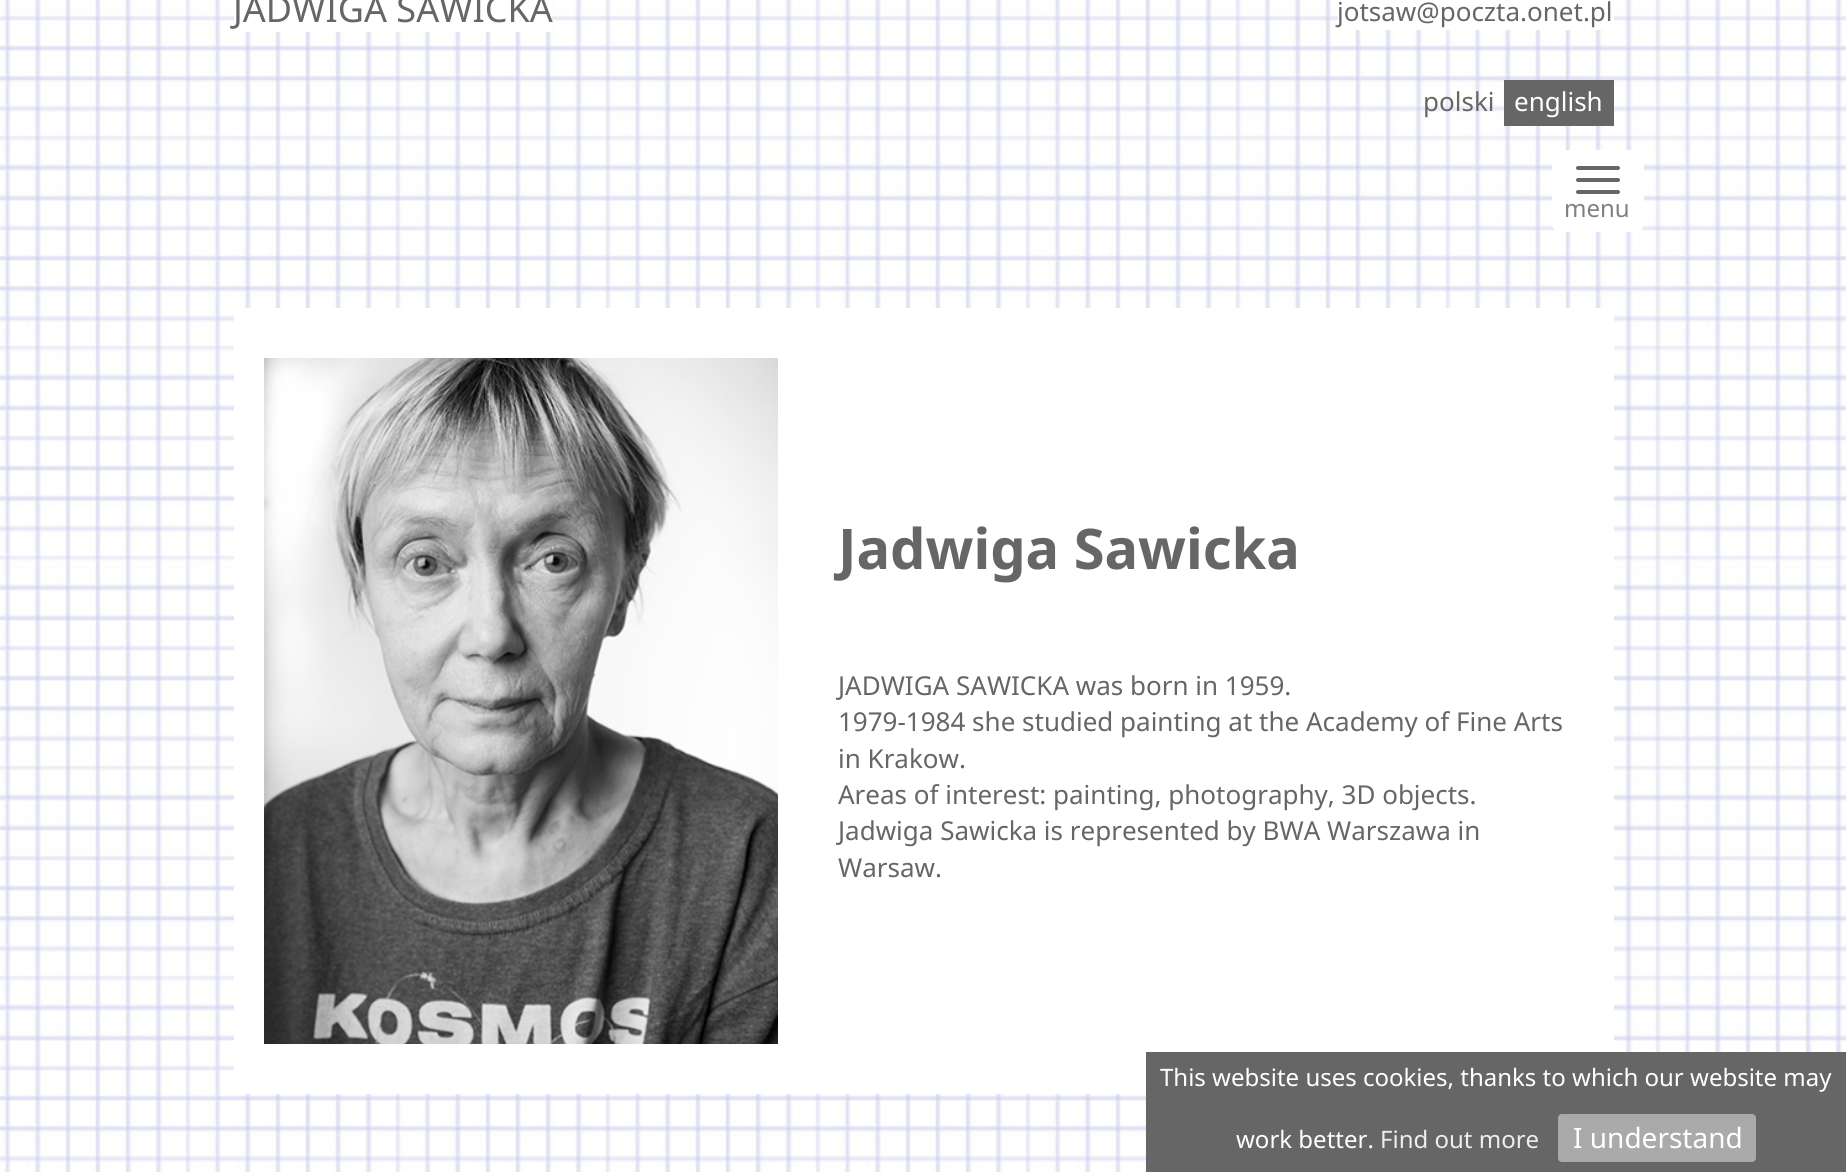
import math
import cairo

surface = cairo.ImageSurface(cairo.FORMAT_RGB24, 1846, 1172)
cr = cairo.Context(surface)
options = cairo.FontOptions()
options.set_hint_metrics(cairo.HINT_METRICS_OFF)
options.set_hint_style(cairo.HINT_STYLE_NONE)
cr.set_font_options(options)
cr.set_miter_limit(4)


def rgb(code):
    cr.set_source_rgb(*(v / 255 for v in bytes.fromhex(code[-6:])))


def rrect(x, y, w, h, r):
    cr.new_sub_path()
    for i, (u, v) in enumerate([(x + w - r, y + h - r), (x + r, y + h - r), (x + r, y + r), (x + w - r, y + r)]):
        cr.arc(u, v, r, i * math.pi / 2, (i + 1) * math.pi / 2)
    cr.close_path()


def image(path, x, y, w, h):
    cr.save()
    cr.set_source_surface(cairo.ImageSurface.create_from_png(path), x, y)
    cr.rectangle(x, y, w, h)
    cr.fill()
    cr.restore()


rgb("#ffffff")
cr.paint()
image("img/1.png", 0, 0, 1846, 1172)
for x, y, w, h, color in [
    (234, 0, 318, 32, "#ffffff"),
    (1338, 0, 276, 30, "#ffffff"),
    (1504, 80, 110, 46, "#666666"),
]:
    rgb(color)
    cr.rectangle(x, y, w, h)
    cr.fill()
rgb("#ffffff")
rrect(1552, 150, 92, 82, 8)
cr.fill()
rgb("#666666")
rrect(1576, 166, 44, 4, 2)
cr.fill()
rrect(1576, 178, 44, 4, 2)
cr.fill()
rrect(1576, 190, 44, 4, 2)
cr.fill()
rgb("#ffffff")
cr.rectangle(234, 308, 1380, 786)
cr.fill()
image("img/2.png", 264, 358, 514, 686)
rgb("#666666")
cr.rectangle(1146, 1052, 700, 120)
cr.fill()
rgb("#aaaaaa")
rrect(1558, 1114, 198, 48, 4)
cr.fill()
cr.select_font_face("Noto Sans")
cr.set_font_size(36)
rgb("#666666")
cr.move_to(233, 22)
cr.show_text("JADWIGA SAWICKA")
cr.set_font_size(26)
cr.move_to(1337, 21)
cr.show_text("jotsaw@poczta.onet.pl")
cr.move_to(1423, 111)
cr.show_text("polski")
rgb("#ffffff")
cr.move_to(1514, 111)
cr.show_text("english")
cr.set_font_size(24)
rgb("#808080")
cr.move_to(1564, 217)
cr.show_text("menu")
cr.select_font_face("Noto Sans", cairo.FONT_SLANT_NORMAL, cairo.FONT_WEIGHT_BOLD)
cr.set_font_size(56)
rgb("#666666")
cr.move_to(838, 569)
cr.show_text("Jadwiga Sawicka")
cr.select_font_face("Noto Sans")
cr.set_font_size(26)
for x, y, s in [
    (838, 695, "JADWIGA SAWICKA was born in 1959."),
    (838, 731, "1979-1984 she studied painting at the Academy of Fine Arts"),
    (838, 768, "in Krakow."),
    (838, 804, "Areas of interest: painting, photography, 3D objects."),
    (838, 840, "Jadwiga Sawicka is represented by BWA Warszawa in"),
    (838, 877, "Warsaw."),
]:
    cr.move_to(x, y)
    cr.show_text(s)
cr.set_font_size(24)
rgb("#ffffff")
cr.move_to(1160, 1086)
cr.show_text("This website uses cookies, thanks to which our website may")
cr.move_to(1236, 1148)
cr.show_text("work better.")
rgb("#eeeeee")
cr.move_to(1380, 1148)
cr.show_text("Find out more")
cr.set_font_size(28)
rgb("#ffffff")
cr.move_to(1573, 1148)
cr.show_text("I understand")
surface.write_to_png("page.png")
